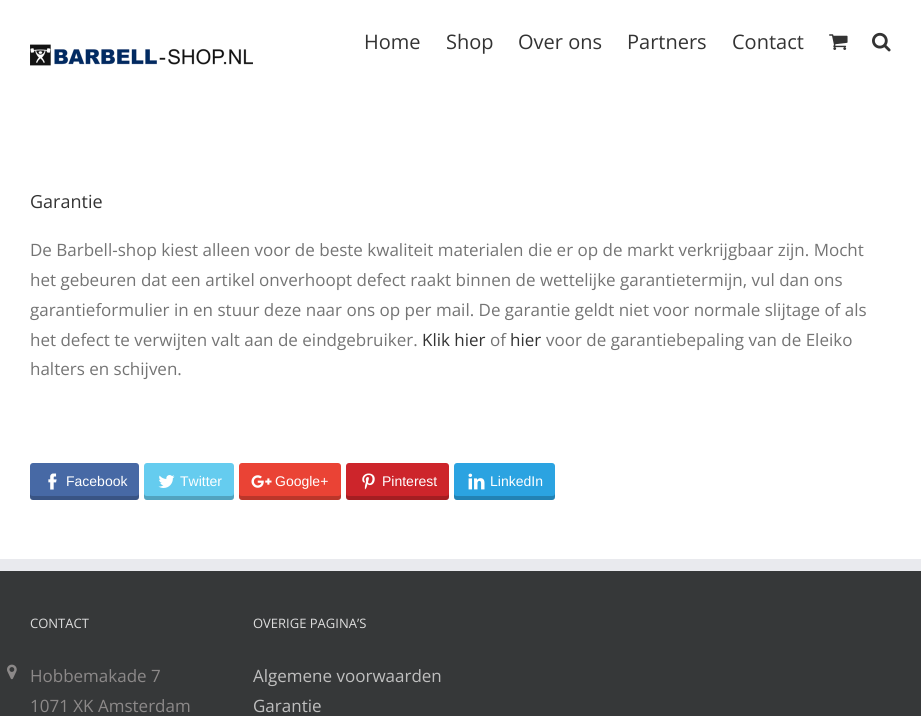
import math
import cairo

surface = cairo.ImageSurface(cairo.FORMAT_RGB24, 921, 716)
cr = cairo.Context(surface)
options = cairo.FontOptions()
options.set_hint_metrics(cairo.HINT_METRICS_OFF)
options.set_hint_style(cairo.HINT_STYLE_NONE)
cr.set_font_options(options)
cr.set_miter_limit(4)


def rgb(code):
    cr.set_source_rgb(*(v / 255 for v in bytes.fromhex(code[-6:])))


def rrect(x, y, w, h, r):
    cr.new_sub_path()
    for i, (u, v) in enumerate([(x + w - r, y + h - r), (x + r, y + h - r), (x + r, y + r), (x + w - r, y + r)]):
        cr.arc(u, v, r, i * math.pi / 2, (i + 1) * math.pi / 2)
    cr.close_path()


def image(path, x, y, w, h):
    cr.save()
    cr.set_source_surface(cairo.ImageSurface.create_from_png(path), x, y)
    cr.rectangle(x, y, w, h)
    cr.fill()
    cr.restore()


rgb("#ffffff")
cr.paint()
image("img/1.png", 30, 44, 223, 22)
image("img/2.png", 829, 34, 19, 16)
image("img/3.png", 872, 32, 19, 20)
rgb("#4769a5")
rrect(30, 463, 109, 37, 3)
cr.fill()
cr.set_source_rgba(0, 0, 0, 0.2)
cr.new_path()
cr.move_to(30, 493)
cr.line_to(30, 497)
cr.curve_to(30, 499, 31, 500, 33, 500)
cr.line_to(136, 500)
cr.curve_to(138, 500, 139, 499, 139, 497)
cr.line_to(139, 493)
cr.curve_to(139, 495, 138, 496, 136, 496)
cr.line_to(33, 496)
cr.curve_to(31, 496, 30, 495, 30, 493)
cr.close_path()
cr.fill()
image("img/4.png", 48, 473, 9, 17)
rgb("#65ccef")
rrect(144, 463, 90, 37, 3)
cr.fill()
cr.set_source_rgba(0, 0, 0, 0.2)
cr.new_path()
cr.move_to(144, 493)
cr.line_to(144, 497)
cr.curve_to(144, 499, 145, 500, 147, 500)
cr.line_to(231, 500)
cr.curve_to(233, 500, 234, 499, 234, 497)
cr.line_to(234, 493)
cr.curve_to(234, 495, 233, 496, 231, 496)
cr.line_to(147, 496)
cr.curve_to(145, 496, 144, 495, 144, 493)
cr.close_path()
cr.fill()
image("img/5.png", 158, 475, 17, 13)
rgb("#ea4335")
rrect(239, 463, 102, 37, 3)
cr.fill()
cr.set_source_rgba(0, 0, 0, 0.2)
cr.new_path()
cr.move_to(239, 493)
cr.line_to(239, 497)
cr.curve_to(239, 499, 240, 500, 242, 500)
cr.line_to(338, 500)
cr.curve_to(340, 500, 341, 499, 341, 497)
cr.line_to(341, 493)
cr.curve_to(341, 495, 340, 496, 338, 496)
cr.line_to(242, 496)
cr.curve_to(240, 496, 239, 495, 239, 493)
cr.close_path()
cr.fill()
image("img/6.png", 251, 475, 21, 13)
rgb("#cd252b")
rrect(346, 463, 103, 37, 3)
cr.fill()
cr.set_source_rgba(0, 0, 0, 0.2)
cr.new_path()
cr.move_to(346, 493)
cr.line_to(346, 497)
cr.curve_to(346, 499, 347, 500, 349, 500)
cr.line_to(446, 500)
cr.curve_to(448, 500, 449, 499, 449, 497)
cr.line_to(449, 493)
cr.curve_to(449, 495, 448, 496, 446, 496)
cr.line_to(349, 496)
cr.curve_to(347, 496, 346, 495, 346, 493)
cr.close_path()
cr.fill()
image("img/7.png", 362, 473, 13, 17)
rgb("#2ba3e1")
rrect(454, 463, 101, 37, 3)
cr.fill()
cr.set_source_rgba(0, 0, 0, 0.2)
cr.new_path()
cr.move_to(454, 493)
cr.line_to(454, 497)
cr.curve_to(454, 499, 455, 500, 457, 500)
cr.line_to(552, 500)
cr.curve_to(554, 500, 555, 499, 555, 497)
cr.line_to(555, 493)
cr.curve_to(555, 495, 554, 496, 552, 496)
cr.line_to(457, 496)
cr.curve_to(455, 496, 454, 495, 454, 493)
cr.close_path()
cr.fill()
image("img/8.png", 468, 473, 17, 17)
rgb("#363839")
cr.rectangle(0, 571, 921, 145)
cr.fill()
rgb("#e9eaee")
cr.rectangle(0, 559, 921, 12)
cr.fill()
image("img/9.png", 7, 664, 10, 16)
cr.select_font_face("Open Sans")
cr.set_font_size(20)
rgb("#333333")
for x, y, s in [
    (364, 49, "Home"),
    (446, 49, "Shop"),
    (518, 49, "Over ons"),
    (627, 49, "Partners"),
    (732, 49, "Contact"),
]:
    cr.move_to(x, y)
    cr.show_text(s)
cr.set_font_size(18)
cr.move_to(30, 208)
cr.show_text("Garantie")
cr.set_font_size(17)
rgb("#747474")
for x, y, s in [
    (30, 256, "De Barbell-shop kiest alleen voor de beste kwaliteit materialen die er op de markt verkrijgbaar zijn. Mocht"),
    (30, 286, "het gebeuren dat een artikel onverhoopt defect raakt binnen de wettelijke garantietermijn, vul dan ons"),
    (30, 316, "garantieformulier in en stuur deze naar ons op per mail. De garantie geldt niet voor normale slijtage of als"),
    (30, 346, "het defect te verwijten valt aan de eindgebruiker."),
]:
    cr.move_to(x, y)
    cr.show_text(s)
rgb("#333333")
cr.move_to(422, 346)
cr.show_text("Klik hier")
rgb("#747474")
cr.move_to(490, 346)
cr.show_text("of")
rgb("#333333")
cr.move_to(510, 346)
cr.show_text("hier")
rgb("#747474")
cr.move_to(546, 346)
cr.show_text("voor de garantiebepaling van de Eleiko")
cr.move_to(30, 375)
cr.show_text("halters en schijven.")
cr.select_font_face("Liberation Sans")
cr.set_font_size(14)
rgb("#ffffff")
for x, y, s in [
    (66, 486, "Facebook"),
    (180, 486, "Twitter"),
    (275, 486, "Google+"),
    (382, 486, "Pinterest"),
    (490, 486, "LinkedIn"),
]:
    cr.move_to(x, y)
    cr.show_text(s)
cr.select_font_face("Open Sans")
cr.set_font_size(13)
rgb("#dddddd")
cr.move_to(30, 628)
cr.show_text("CONTACT")
cr.set_font_size(17)
rgb("#8c8989")
cr.move_to(30, 682)
cr.show_text("Hobbemakade 7")
cr.move_to(30, 712)
cr.show_text("1071 XK Amsterdam")
cr.set_font_size(13)
rgb("#dddddd")
cr.move_to(253, 628)
cr.show_text("OVERIGE PAGINA’S")
cr.set_font_size(17)
rgb("#bfbfbf")
cr.move_to(253, 682)
cr.show_text("Algemene voorwaarden")
cr.move_to(253, 712)
cr.show_text("Garantie")
surface.write_to_png("page.png")
